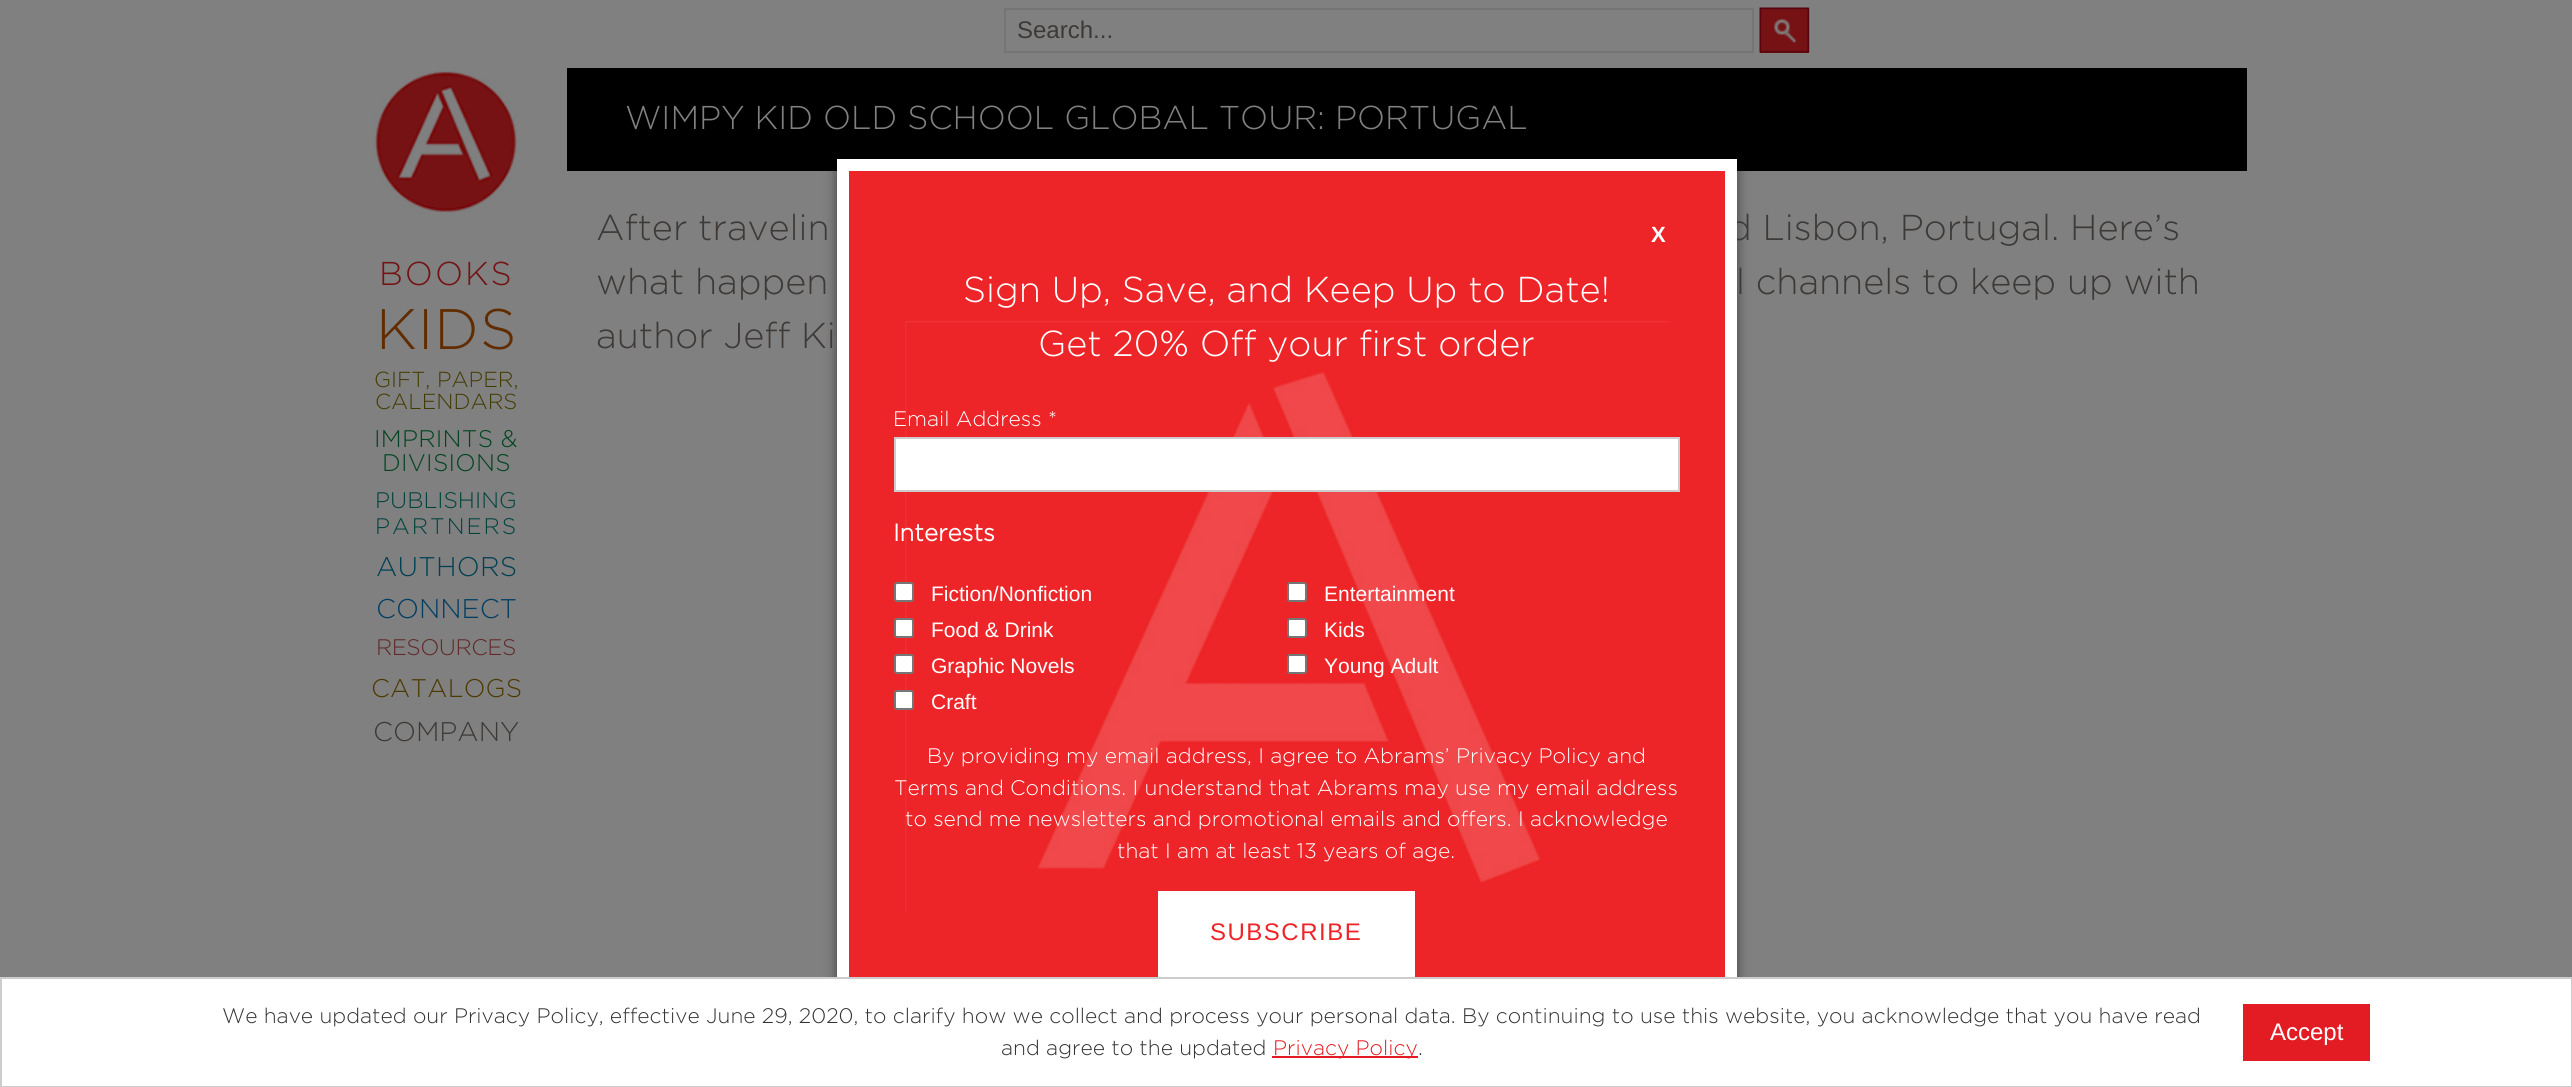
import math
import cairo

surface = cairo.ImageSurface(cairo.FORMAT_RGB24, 2572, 1087)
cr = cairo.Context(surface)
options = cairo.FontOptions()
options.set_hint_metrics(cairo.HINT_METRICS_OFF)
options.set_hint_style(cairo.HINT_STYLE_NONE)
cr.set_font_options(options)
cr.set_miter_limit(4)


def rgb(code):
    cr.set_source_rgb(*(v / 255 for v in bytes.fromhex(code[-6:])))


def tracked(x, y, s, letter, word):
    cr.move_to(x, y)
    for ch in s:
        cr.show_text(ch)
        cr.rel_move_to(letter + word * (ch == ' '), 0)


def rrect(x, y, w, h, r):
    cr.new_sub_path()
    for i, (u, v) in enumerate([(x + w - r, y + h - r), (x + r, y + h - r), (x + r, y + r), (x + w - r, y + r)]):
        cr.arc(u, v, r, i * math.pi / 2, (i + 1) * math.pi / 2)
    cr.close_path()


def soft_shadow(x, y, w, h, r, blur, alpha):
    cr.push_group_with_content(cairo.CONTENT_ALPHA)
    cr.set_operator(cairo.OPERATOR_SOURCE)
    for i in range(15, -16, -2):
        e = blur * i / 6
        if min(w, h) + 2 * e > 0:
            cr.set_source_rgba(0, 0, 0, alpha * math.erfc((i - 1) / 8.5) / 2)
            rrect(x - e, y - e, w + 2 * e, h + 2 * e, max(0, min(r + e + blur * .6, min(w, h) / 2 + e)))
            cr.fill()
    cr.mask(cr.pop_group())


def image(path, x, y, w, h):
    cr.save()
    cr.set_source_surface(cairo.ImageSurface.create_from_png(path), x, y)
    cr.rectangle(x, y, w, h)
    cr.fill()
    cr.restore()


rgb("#808080")
cr.paint()
cr.rectangle(1005, 9, 748, 43)
rgb("#757575")
cr.stroke()
rgb("#771314")
cr.rectangle(1760, 8, 49, 45)
cr.fill()
image("img/1.png", 1759, 7, 51, 46)
rgb("#000000")
cr.rectangle(567, 68, 1680, 103)
cr.fill()
image("img/2.png", 374, 71, 143, 142)
rgb("#000000")
soft_shadow(837, 164, 900, 921, 0, 6, 0.5)
rgb("#ed2528")
cr.rectangle(849, 171, 876, 806)
cr.fill()
image("img/3.png", 905, 321, 764, 592)
cr.select_font_face("Liberation Sans")
cr.set_font_size(24)
rgb("#3c3936")
cr.move_to(1017, 38)
cr.show_text("Search...")
cr.select_font_face("Gotham Light")
cr.set_font_size(33)
rgb("#808080")
cr.move_to(625, 129)
cr.show_text("WIMPY KID OLD SCHOOL GLOBAL TOUR: PORTUGAL")
cr.set_font_size(36)
rgb("#3c3936")
for x, y, s in [
    (596, 240, "After travelin"),
    (1728, 240, "d Lisbon, Portugal. Here’s"),
    (596, 294, "what happen"),
    (1736, 294, "l channels to keep up with"),
    (596, 348, "author Jeff Ki"),
]:
    cr.move_to(x, y)
    cr.show_text(s)
cr.set_font_size(33)
rgb("#731314")
tracked(379, 285, "BOOKS", 2, 0)
cr.set_font_size(57)
rgb("#602c00")
tracked(376, 349, "KIDS", 1, 0)
cr.set_font_size(21.75)
rgb("#423b00")
cr.move_to(374, 387)
cr.show_text("GIFT, PAPER,")
cr.move_to(375, 409)
cr.show_text("CALENDARS")
cr.set_font_size(24)
rgb("#004420")
tracked(374, 447, "IMPRINTS &", 0.25, 0)
tracked(382, 471, "DIVISIONS", 0.25, 0)
cr.set_font_size(22.5)
rgb("#00433d")
cr.move_to(375, 508)
cr.show_text("PUBLISHING")
tracked(375, 534, "PARTNERS", 2, 0)
cr.set_font_size(27)
rgb("#004053")
tracked(376, 576, "AUTHORS", 0.25, 0)
rgb("#003e62")
cr.move_to(376, 618)
cr.show_text("CONNECT")
cr.set_font_size(22.5)
rgb("#612929")
tracked(376, 655, "RESOURCES", -0.5, 0)
cr.set_font_size(25.5)
rgb("#4c3801")
tracked(371, 697, "CATALOGS", 0.25, 0)
cr.set_font_size(27)
rgb("#3c3936")
cr.move_to(373, 741)
cr.show_text("COMPANY")
cr.rectangle(843, 165, 888, 909)
rgb("#ffffff")
cr.set_line_width(12)
cr.stroke()
cr.select_font_face("Liberation Sans", cairo.FONT_SLANT_NORMAL, cairo.FONT_WEIGHT_BOLD)
cr.set_font_size(22)
tracked(1651, 242, "X", 2, 0)
cr.select_font_face("Gotham Light")
cr.set_font_size(36)
cr.move_to(963, 302)
cr.show_text("Sign Up, Save, and Keep Up to Date!")
cr.move_to(1038, 356)
cr.show_text("Get 20% Off your first order")
cr.set_font_size(21)
cr.move_to(893, 426)
cr.show_text("Email Address *")
cr.rectangle(895, 438, 784, 53)
cr.fill_preserve()
rgb("#cccccc")
cr.set_line_width(2)
cr.stroke()
cr.select_font_face("Gotham", cairo.FONT_SLANT_NORMAL, cairo.FONT_WEIGHT_BOLD)
cr.set_font_size(24)
rgb("#ffffff")
cr.move_to(893, 541)
cr.show_text("Interests")
rrect(895, 583, 18, 18, 2)
cr.fill_preserve()
rgb("#767676")
cr.stroke()
cr.select_font_face("Liberation Sans")
cr.set_font_size(21)
rgb("#ffffff")
cr.move_to(931, 601)
cr.show_text("Fiction/Nonfiction")
rrect(895, 619, 18, 18, 2)
cr.fill_preserve()
rgb("#767676")
cr.stroke()
rgb("#ffffff")
cr.move_to(931, 637)
cr.show_text("Food & Drink")
rrect(895, 655, 18, 18, 2)
cr.fill_preserve()
rgb("#767676")
cr.stroke()
rgb("#ffffff")
cr.move_to(931, 673)
cr.show_text("Graphic Novels")
rrect(895, 691, 18, 18, 2)
cr.fill_preserve()
rgb("#767676")
cr.stroke()
rgb("#ffffff")
cr.move_to(931, 709)
cr.show_text("Craft")
rrect(1288, 583, 18, 18, 2)
cr.fill_preserve()
rgb("#767676")
cr.stroke()
rgb("#ffffff")
cr.move_to(1324, 601)
cr.show_text("Entertainment")
rrect(1288, 619, 18, 18, 2)
cr.fill_preserve()
rgb("#767676")
cr.stroke()
rgb("#ffffff")
cr.move_to(1324, 637)
cr.show_text("Kids")
rrect(1288, 655, 18, 18, 2)
cr.fill_preserve()
rgb("#767676")
cr.stroke()
rgb("#ffffff")
cr.move_to(1324, 673)
cr.show_text("Young Adult")
cr.select_font_face("Gotham Light")
for x, y, s in [
    (927, 763, "By providing my email address, I agree to Abrams’ Privacy Policy and"),
    (894, 795, "Terms and Conditions. I understand that Abrams may use my email address"),
    (905, 826, "to send me newsletters and promotional emails and offers. I acknowledge"),
    (1117, 858, "that I am at least 13 years of age."),
]:
    cr.move_to(x, y)
    cr.show_text(s)
cr.rectangle(1158, 891, 257, 86)
cr.fill()
cr.select_font_face("Liberation Sans")
cr.set_font_size(24)
rgb("#ed2528")
tracked(1210, 940, "SUBSCRIBE", 1.5, 0)
rgb("#ffffff")
cr.rectangle(1, 978, 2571, 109)
cr.fill_preserve()
rgb("#cccccc")
cr.stroke()
cr.select_font_face("Gotham Light")
cr.set_font_size(21)
rgb("#333333")
cr.move_to(222, 1023)
cr.show_text("We have updated our Privacy Policy, effective June 29, 2020, to clarify how we collect and process your personal data. By continuing to use this website, you acknowledge that you have read")
cr.move_to(1001, 1055)
cr.show_text("and agree to the updated")
rgb("#e31c23")
cr.rectangle(1272, 1056, 146, 2)
cr.fill()
cr.move_to(1273, 1055)
cr.show_text("Privacy Policy")
rgb("#333333")
cr.move_to(1418, 1055)
cr.show_text(".")
rgb("#e31c23")
cr.rectangle(2243, 1004, 127, 57)
cr.fill()
cr.select_font_face("Liberation Sans")
cr.set_font_size(24)
rgb("#ffffff")
cr.move_to(2270, 1040)
cr.show_text("Accept")
surface.write_to_png("page.png")
